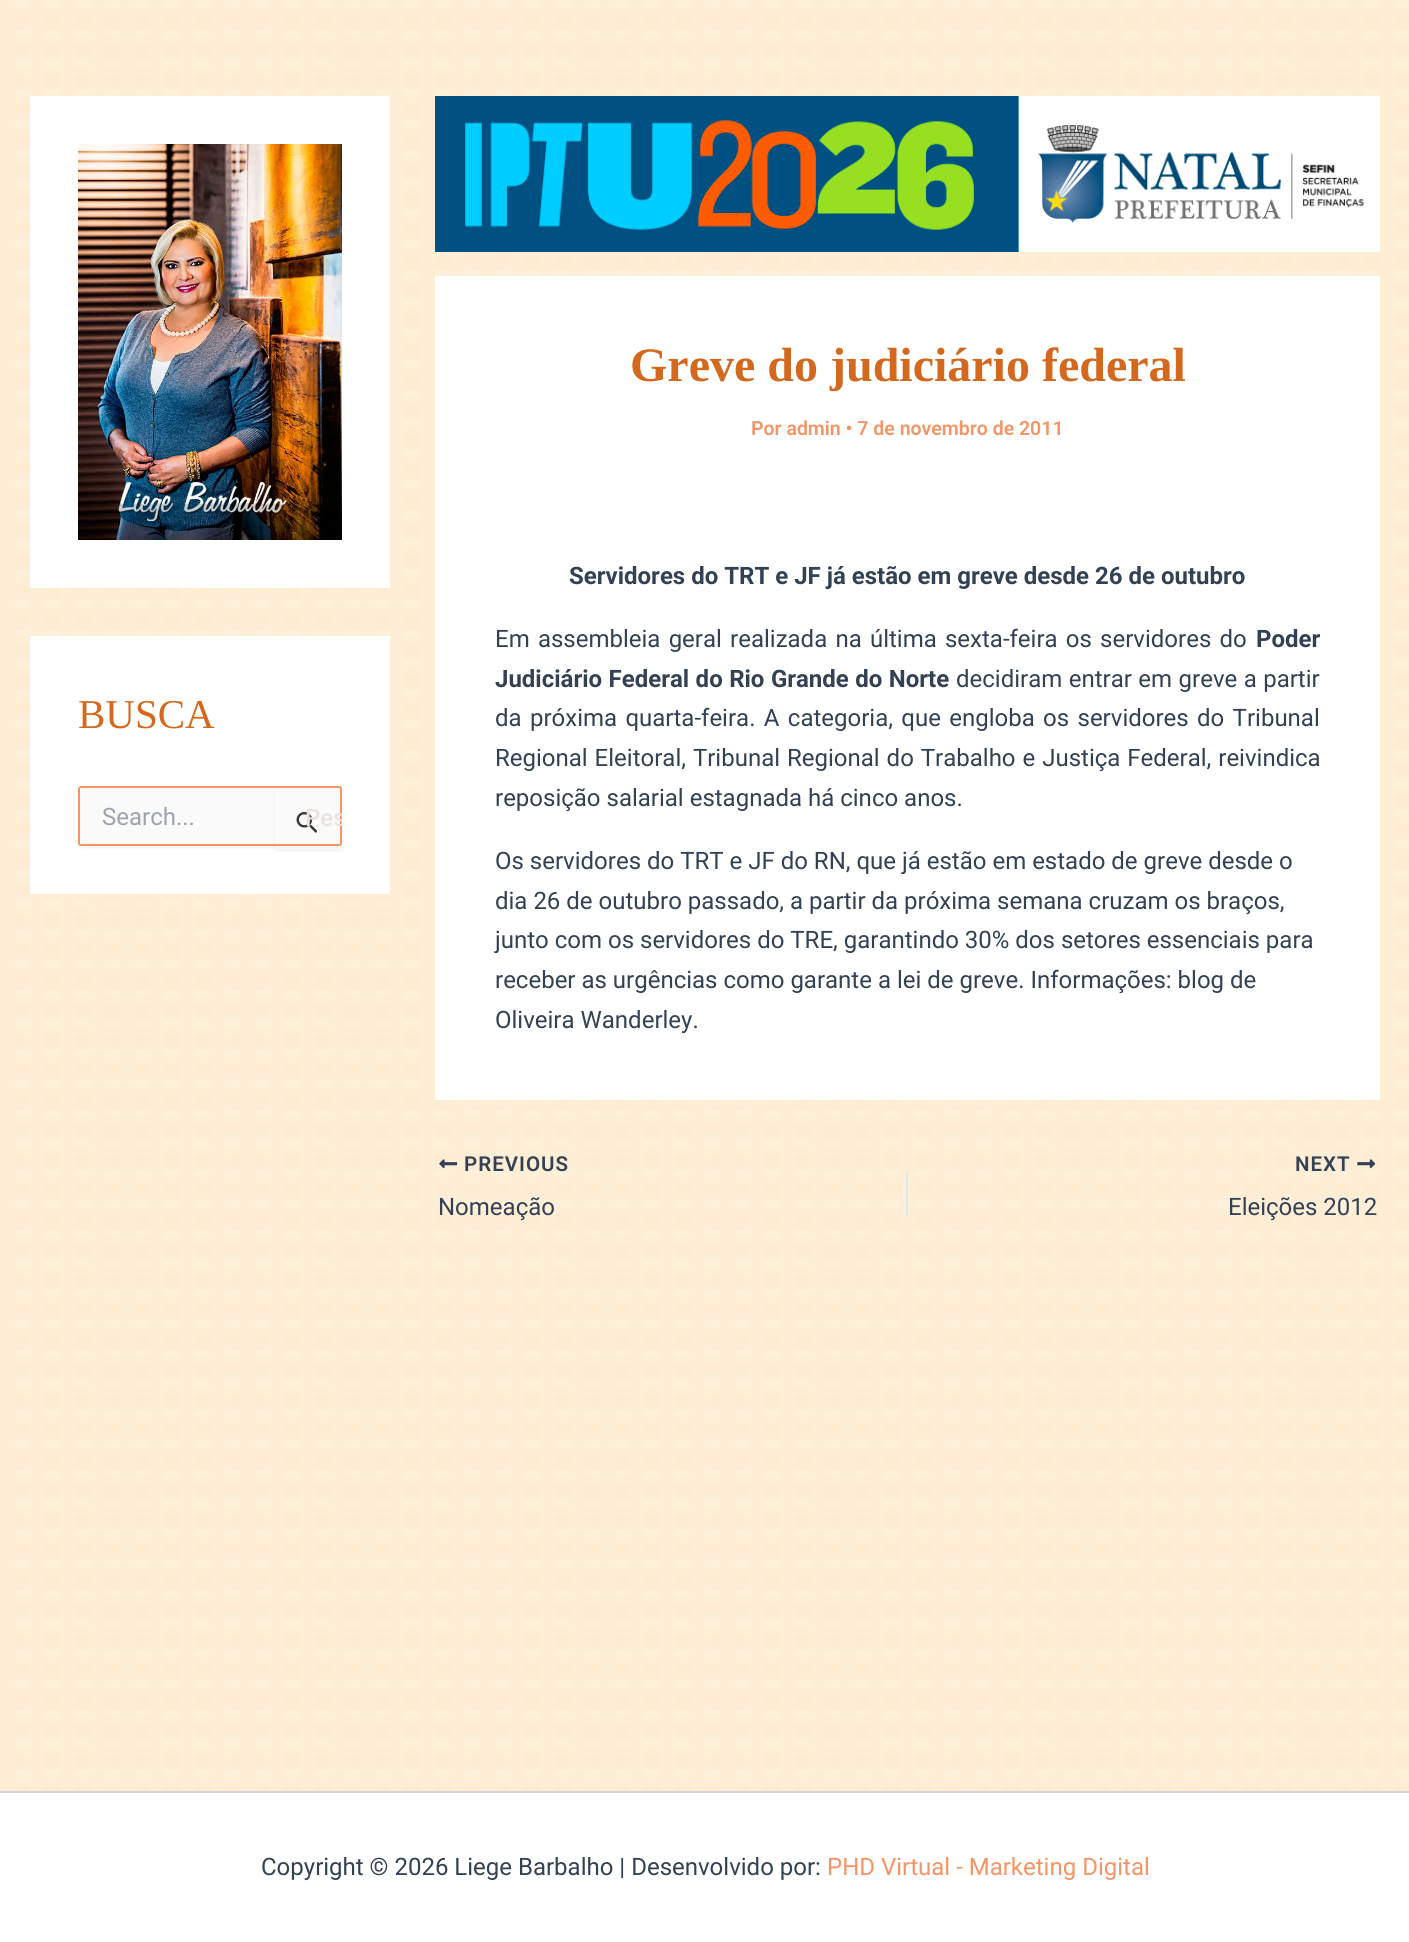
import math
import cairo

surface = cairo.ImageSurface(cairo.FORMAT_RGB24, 1409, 1942)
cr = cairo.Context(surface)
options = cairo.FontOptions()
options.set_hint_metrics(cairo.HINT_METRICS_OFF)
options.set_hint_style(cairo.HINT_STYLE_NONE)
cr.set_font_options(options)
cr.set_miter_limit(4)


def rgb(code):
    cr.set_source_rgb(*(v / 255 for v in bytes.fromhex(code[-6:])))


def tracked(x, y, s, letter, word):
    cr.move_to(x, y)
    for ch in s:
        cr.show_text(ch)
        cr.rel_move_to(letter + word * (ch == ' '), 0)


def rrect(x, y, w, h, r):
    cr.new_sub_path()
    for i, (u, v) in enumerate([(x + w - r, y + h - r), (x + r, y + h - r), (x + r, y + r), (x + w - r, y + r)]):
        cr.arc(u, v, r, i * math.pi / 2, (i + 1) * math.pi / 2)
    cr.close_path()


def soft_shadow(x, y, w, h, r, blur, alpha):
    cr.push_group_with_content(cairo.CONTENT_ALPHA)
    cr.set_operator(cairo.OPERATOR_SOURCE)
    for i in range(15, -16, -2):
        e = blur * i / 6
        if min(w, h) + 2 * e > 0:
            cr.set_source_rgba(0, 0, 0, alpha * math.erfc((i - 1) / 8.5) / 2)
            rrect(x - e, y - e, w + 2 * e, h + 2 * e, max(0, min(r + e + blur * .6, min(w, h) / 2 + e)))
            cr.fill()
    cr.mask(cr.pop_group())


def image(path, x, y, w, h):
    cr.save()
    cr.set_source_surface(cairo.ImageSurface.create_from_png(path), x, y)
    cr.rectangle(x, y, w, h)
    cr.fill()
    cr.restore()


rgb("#ffebcf")
cr.paint()
image("img/1.png", 15, 0, 1394, 1785)
image("img/2.png", 0, 0, 1395, 1791)
rgb("#ffffff")
cr.rectangle(30, 96, 360, 492)
cr.fill()
image("img/3.png", 78, 144, 264, 396)
cr.rectangle(30, 636, 360, 258)
cr.fill()
rgb("#000000")
soft_shadow(78, 788, 264, 60, 3, 1.5, 0.05)
rgb("#fafafa")
rrect(79, 787, 262, 58, 2)
cr.fill_preserve()
rgb("#f59565")
cr.stroke()
image("img/4.png", 296, 812, 21, 21)
cr.save()
cr.set_fill_rule(cairo.FILL_RULE_EVEN_ODD)
cr.new_path()
cr.move_to(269, 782)
cr.line_to(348, 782)
cr.line_to(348, 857)
cr.line_to(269, 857)
cr.close_path()
cr.move_to(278, 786)
cr.line_to(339, 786)
cr.curve_to(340.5, 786, 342, 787.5, 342, 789)
cr.line_to(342, 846)
cr.curve_to(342, 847.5, 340.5, 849, 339, 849)
cr.line_to(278, 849)
cr.curve_to(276.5, 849, 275, 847.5, 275, 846)
cr.line_to(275, 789)
cr.curve_to(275, 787.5, 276.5, 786, 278, 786)
cr.close_path()
cr.clip()
rgb("#000000")
soft_shadow(275, 788, 67, 63, 3, 1.5, 0.05)
cr.restore()
image("img/5.png", 435, 96, 945, 156)
rgb("#ffffff")
cr.rectangle(435, 276, 945, 824)
cr.fill()
image("img/6.png", 439, 1159, 19, 9)
rgb("#e1e8ed")
cr.rectangle(906, 1172, 2, 45)
cr.fill()
image("img/7.png", 1357, 1159, 19, 9)
rgb("#ffffff")
cr.rectangle(0, 1793, 1409, 149)
cr.fill()
rgb("#d1d5db")
cr.rectangle(0, 1791, 1409, 2)
cr.fill()
cr.select_font_face("Liberation Serif")
cr.set_font_size(41)
rgb("#d2691e")
cr.move_to(78, 728)
cr.show_text("BUSCA")
cr.select_font_face("Roboto")
cr.set_font_size(24)
rgb("#9ca3af")
cr.move_to(102, 825)
cr.show_text("Search...")
cr.save()
rrect(275, 786, 67, 63, 3)
cr.clip()
cr.select_font_face("Roboto Medium")
rgb("#e9e3e0")
cr.move_to(305, 826)
cr.show_text("Pes")
cr.restore()
cr.select_font_face("Liberation Serif", cairo.FONT_SLANT_NORMAL, cairo.FONT_WEIGHT_BOLD)
cr.set_font_size(48)
rgb("#d2691e")
cr.move_to(630, 381)
cr.show_text("Greve do judiciário federal")
cr.select_font_face("Roboto SemiBold")
cr.set_font_size(19.5)
rgb("#f59565")
cr.move_to(751, 435)
cr.show_text("Por admin • 7 de novembro de 2011")
cr.select_font_face("Roboto", cairo.FONT_SLANT_NORMAL, cairo.FONT_WEIGHT_BOLD)
cr.set_font_size(24)
rgb("#334155")
cr.move_to(569, 584)
cr.show_text("Servidores do TRT e JF já estão em greve desde 26 de outubro")
cr.select_font_face("Roboto")
tracked(495, 647, "Em assembleia geral realizada na última sexta-feira os servidores do", 0, 2.25)
cr.select_font_face("Roboto", cairo.FONT_SLANT_NORMAL, cairo.FONT_WEIGHT_BOLD)
cr.move_to(1256, 647)
cr.show_text("Poder")
tracked(495, 687, "Judiciário Federal do Rio Grande do Norte", 0, 0.5)
cr.select_font_face("Roboto")
tracked(956, 687, "decidiram entrar em greve a partir", 0, 0.5)
tracked(495, 726, "da próxima quarta-feira. A categoria, que engloba os servidores do Tribunal", 0, 2.4)
tracked(495, 766, "Regional Eleitoral, Tribunal Regional do Trabalho e Justiça Federal, reivindica", 0, 1)
for x, y, s in [
    (495, 806, "reposição salarial estagnada há cinco anos."),
    (495, 869, "Os servidores do TRT e JF do RN, que já estão em estado de greve desde o"),
    (495, 909, "dia 26 de outubro passado, a partir da próxima semana cruzam os braços,"),
    (495, 948, "junto com os servidores do TRE, garantindo 30% dos setores essenciais para"),
    (495, 988, "receber as urgências como garante a lei de greve. Informações: blog de"),
    (495, 1028, "Oliveira Wanderley."),
]:
    cr.move_to(x, y)
    cr.show_text(s)
cr.select_font_face("Roboto SemiBold")
cr.set_font_size(20.5)
tracked(464, 1171, "PREVIOUS", 1, 0)
cr.select_font_face("Roboto")
cr.set_font_size(24)
cr.move_to(438, 1215)
cr.show_text("Nomeação")
cr.select_font_face("Roboto SemiBold")
cr.set_font_size(20.5)
tracked(1295, 1171, "NEXT", 1, 0)
cr.select_font_face("Roboto")
cr.set_font_size(24)
cr.move_to(1228, 1215)
cr.show_text("Eleições 2012")
cr.move_to(261, 1875)
cr.show_text("Copyright © 2026 Liege Barbalho | Desenvolvido por:")
rgb("#f59565")
cr.move_to(827, 1875)
cr.show_text("PHD Virtual - Marketing Digital")
surface.write_to_png("page.png")
